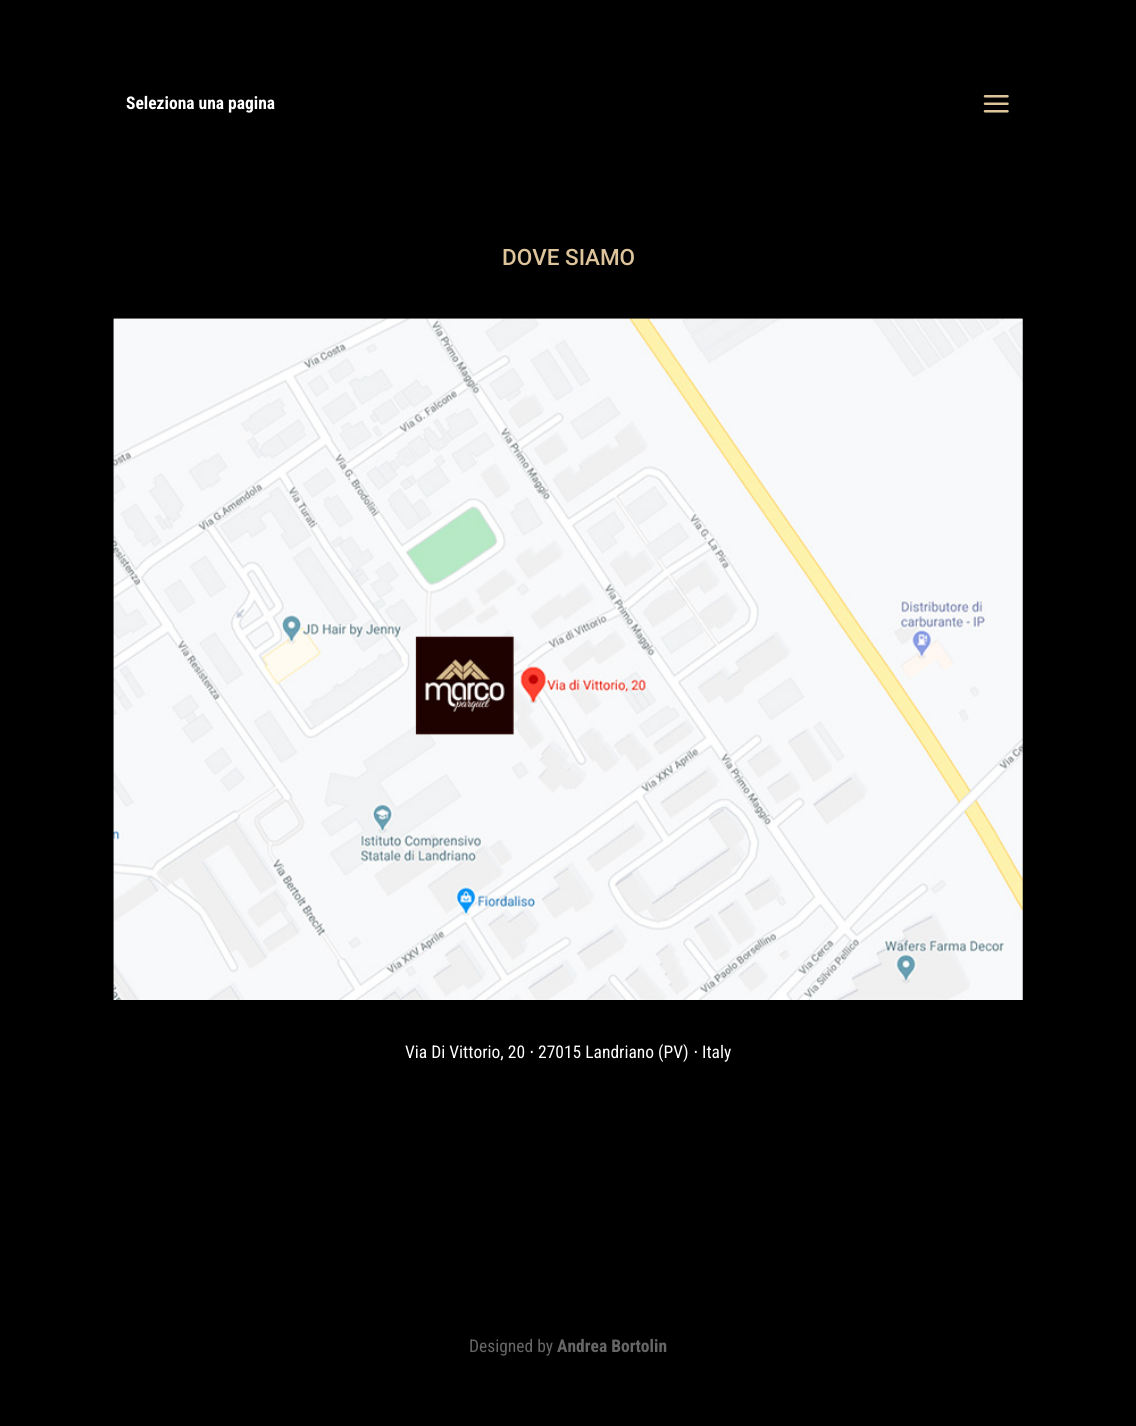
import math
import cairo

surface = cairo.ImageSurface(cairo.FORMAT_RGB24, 1136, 1426)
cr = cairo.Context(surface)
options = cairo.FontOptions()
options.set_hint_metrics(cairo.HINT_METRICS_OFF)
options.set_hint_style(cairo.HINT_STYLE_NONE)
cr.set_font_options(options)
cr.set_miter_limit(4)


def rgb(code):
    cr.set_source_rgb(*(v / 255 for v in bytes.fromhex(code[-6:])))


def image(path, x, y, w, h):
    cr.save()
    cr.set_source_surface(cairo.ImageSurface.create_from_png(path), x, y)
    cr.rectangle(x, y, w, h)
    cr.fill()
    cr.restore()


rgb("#000000")
cr.paint()
image("img/1.png", 983, 95, 26, 18)
image("img/2.png", 113, 318, 910, 682)
image("img/3.png", 113, 318, 910, 682)
cr.select_font_face("Roboto Condensed", cairo.FONT_SLANT_NORMAL, cairo.FONT_WEIGHT_BOLD)
cr.set_font_size(17.5)
rgb("#ffffff")
cr.move_to(126, 109)
cr.show_text("Seleziona una pagina")
cr.select_font_face("Roboto Medium")
cr.set_font_size(22.5)
rgb("#ddc49b")
cr.move_to(502, 265)
cr.show_text("DOVE SIAMO")
cr.select_font_face("Roboto Condensed")
cr.set_font_size(17.5)
rgb("#ffffff")
cr.move_to(405, 1058)
cr.show_text("Via Di Vittorio, 20")
cr.select_font_face("DejaVu Sans")
cr.move_to(529, 1058)
cr.show_text("⋅")
cr.select_font_face("Roboto Condensed")
cr.move_to(538, 1058)
cr.show_text("27015 Landriano (PV)")
cr.select_font_face("DejaVu Sans")
cr.move_to(693, 1058)
cr.show_text("⋅")
cr.select_font_face("Roboto Condensed")
cr.move_to(702, 1058)
cr.show_text("Italy")
rgb("#666666")
cr.move_to(469, 1352)
cr.show_text("Designed by")
cr.select_font_face("Roboto Condensed", cairo.FONT_SLANT_NORMAL, cairo.FONT_WEIGHT_BOLD)
cr.move_to(557, 1352)
cr.show_text("Andrea Bortolin")
surface.write_to_png("page.png")
